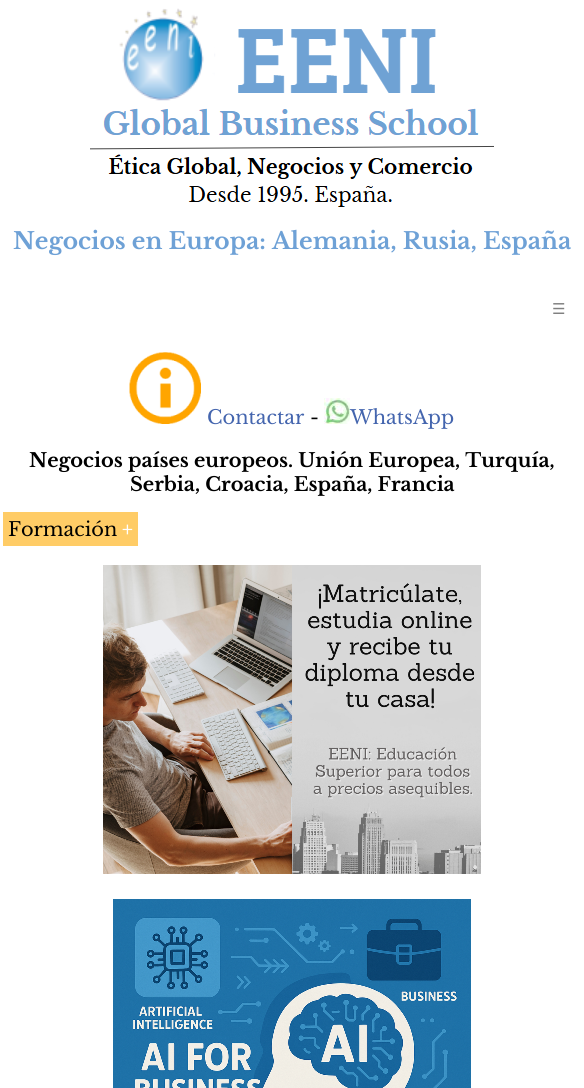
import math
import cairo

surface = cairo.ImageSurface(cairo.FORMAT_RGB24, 584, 1088)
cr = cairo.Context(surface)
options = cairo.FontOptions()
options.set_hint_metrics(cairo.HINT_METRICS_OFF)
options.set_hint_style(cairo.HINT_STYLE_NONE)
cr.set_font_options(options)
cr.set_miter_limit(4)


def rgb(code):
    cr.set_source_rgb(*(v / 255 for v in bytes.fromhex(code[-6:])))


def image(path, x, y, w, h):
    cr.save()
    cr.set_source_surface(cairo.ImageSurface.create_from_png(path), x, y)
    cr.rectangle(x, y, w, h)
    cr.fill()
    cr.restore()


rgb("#ffffff")
cr.paint()
image("img/1.png", 90, 8, 404, 199)
image("img/2.png", 129, 352, 72, 72)
image("img/3.png", 324, 398, 26, 26)
rgb("#ffcc66")
cr.rectangle(3, 512, 135, 34)
cr.fill()
image("img/4.png", 103, 565, 378, 309)
image("img/5.png", 113, 899, 358, 189)
cr.select_font_face("Libre Baskerville", cairo.FONT_SLANT_NORMAL, cairo.FONT_WEIGHT_BOLD)
cr.set_font_size(23.25)
rgb("#6ea1d6")
cr.move_to(13, 249)
cr.show_text("Negocios en Europa: Alemania, Rusia, España")
cr.select_font_face("DejaVu Sans")
cr.set_font_size(15)
rgb("#808080")
cr.move_to(552, 314)
cr.show_text("☰")
cr.select_font_face("Libre Baskerville")
cr.set_font_size(19.35)
rgb("#4465ae")
cr.move_to(207, 424)
cr.show_text("Contactar")
rgb("#000000")
cr.move_to(310, 424)
cr.show_text("-")
rgb("#4465ae")
cr.move_to(350, 424)
cr.show_text("WhatsApp")
cr.select_font_face("Libre Baskerville", cairo.FONT_SLANT_NORMAL, cairo.FONT_WEIGHT_BOLD)
rgb("#000000")
cr.move_to(29, 467)
cr.show_text("Negocios países europeos. Unión Europea, Turquía,")
cr.move_to(130, 491)
cr.show_text("Serbia, Croacia, España, Francia")
cr.select_font_face("Libre Baskerville")
cr.move_to(8, 536)
cr.show_text("Formación")
cr.select_font_face("Libre Baskerville", cairo.FONT_SLANT_NORMAL, cairo.FONT_WEIGHT_BOLD)
rgb("#ffffff")
cr.move_to(122, 536)
cr.show_text("+")
surface.write_to_png("page.png")
